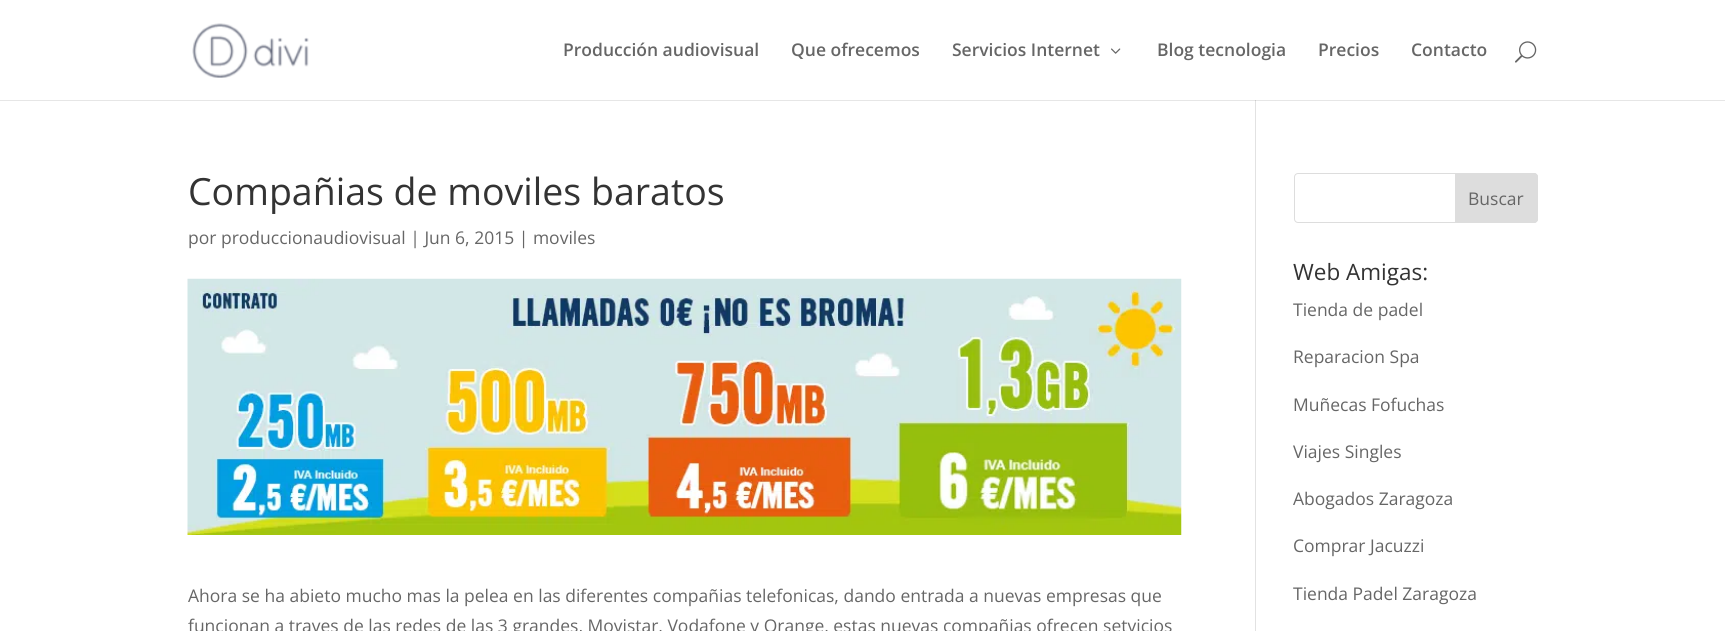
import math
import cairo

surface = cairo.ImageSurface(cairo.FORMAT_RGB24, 1725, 631)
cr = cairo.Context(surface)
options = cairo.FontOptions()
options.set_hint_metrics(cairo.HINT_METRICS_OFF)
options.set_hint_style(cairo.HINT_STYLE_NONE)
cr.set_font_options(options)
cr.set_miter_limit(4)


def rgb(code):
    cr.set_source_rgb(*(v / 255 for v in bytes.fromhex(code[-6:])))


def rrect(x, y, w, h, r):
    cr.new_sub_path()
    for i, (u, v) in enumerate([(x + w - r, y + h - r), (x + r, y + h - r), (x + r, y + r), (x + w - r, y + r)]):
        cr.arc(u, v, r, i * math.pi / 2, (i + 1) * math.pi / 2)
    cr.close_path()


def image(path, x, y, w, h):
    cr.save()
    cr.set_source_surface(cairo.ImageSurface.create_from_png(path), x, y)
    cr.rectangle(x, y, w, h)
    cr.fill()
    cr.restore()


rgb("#ffffff")
cr.paint()
rgb("#e6e6e6")
cr.rectangle(0, 100, 1725, 1)
cr.fill()
image("img/1.png", 192, 23, 117, 55)
image("img/2.png", 1111, 48, 10, 6)
image("img/3.png", 1515, 41, 22, 22)
rgb("#e2e2e2")
cr.rectangle(1255, 100, 1, 531)
cr.fill()
rgb("#cbcbcb")
cr.rectangle(1255, 100, 1, 1)
cr.fill()
image("img/4.png", 187, 278, 995, 257)
rrect(1294.5, 173.5, 243, 49, 3.5)
rgb("#dddddd")
cr.set_line_width(1)
cr.stroke()
cr.new_path()
cr.move_to(1455.5, 173.5)
cr.line_to(1534, 173.5)
cr.curve_to(1536, 173.5, 1537.5, 175, 1537.5, 177)
cr.line_to(1537.5, 219)
cr.curve_to(1537.5, 221, 1536, 222.5, 1534, 222.5)
cr.line_to(1455.5, 222.5)
cr.close_path()
cr.fill_preserve()
cr.stroke()
cr.select_font_face("Open Sans SemiBold")
cr.set_font_size(17.5)
rgb("#666666")
for x, y, s in [
    (563, 56, "Producción audiovisual"),
    (791, 56, "Que ofrecemos"),
    (952, 56, "Servicios Internet"),
    (1157, 56, "Blog tecnologia"),
    (1318, 56, "Precios"),
    (1411, 56, "Contacto"),
]:
    cr.move_to(x, y)
    cr.show_text(s)
cr.select_font_face("Open Sans")
cr.set_font_size(37.5)
rgb("#333333")
cr.move_to(188, 205)
cr.show_text("Compañias de moviles baratos")
cr.set_font_size(17.5)
rgb("#666666")
for x, y, s in [
    (188, 244, "por produccionaudiovisual | Jun 6, 2015 | moviles"),
    (188, 602, "Ahora se ha abieto mucho mas la pelea en las diferentes compañias telefonicas, dando entrada a nuevas empresas que"),
    (188, 632, "funcionan a traves de las redes de las 3 grandes, Movistar, Vodafone y Orange, estas nuevas compañias ofrecen setvicios"),
    (1468, 205, "Buscar"),
]:
    cr.move_to(x, y)
    cr.show_text(s)
cr.set_font_size(22.5)
rgb("#333333")
cr.move_to(1293, 280)
cr.show_text("Web Amigas:")
cr.set_font_size(17.5)
rgb("#666666")
for x, y, s in [
    (1293, 316, "Tienda de padel"),
    (1293, 363, "Reparacion Spa"),
    (1293, 411, "Muñecas Fofuchas"),
    (1293, 458, "Viajes Singles"),
    (1293, 505, "Abogados Zaragoza"),
    (1293, 552, "Comprar Jacuzzi"),
    (1293, 600, "Tienda Padel Zaragoza"),
]:
    cr.move_to(x, y)
    cr.show_text(s)
surface.write_to_png("page.png")
